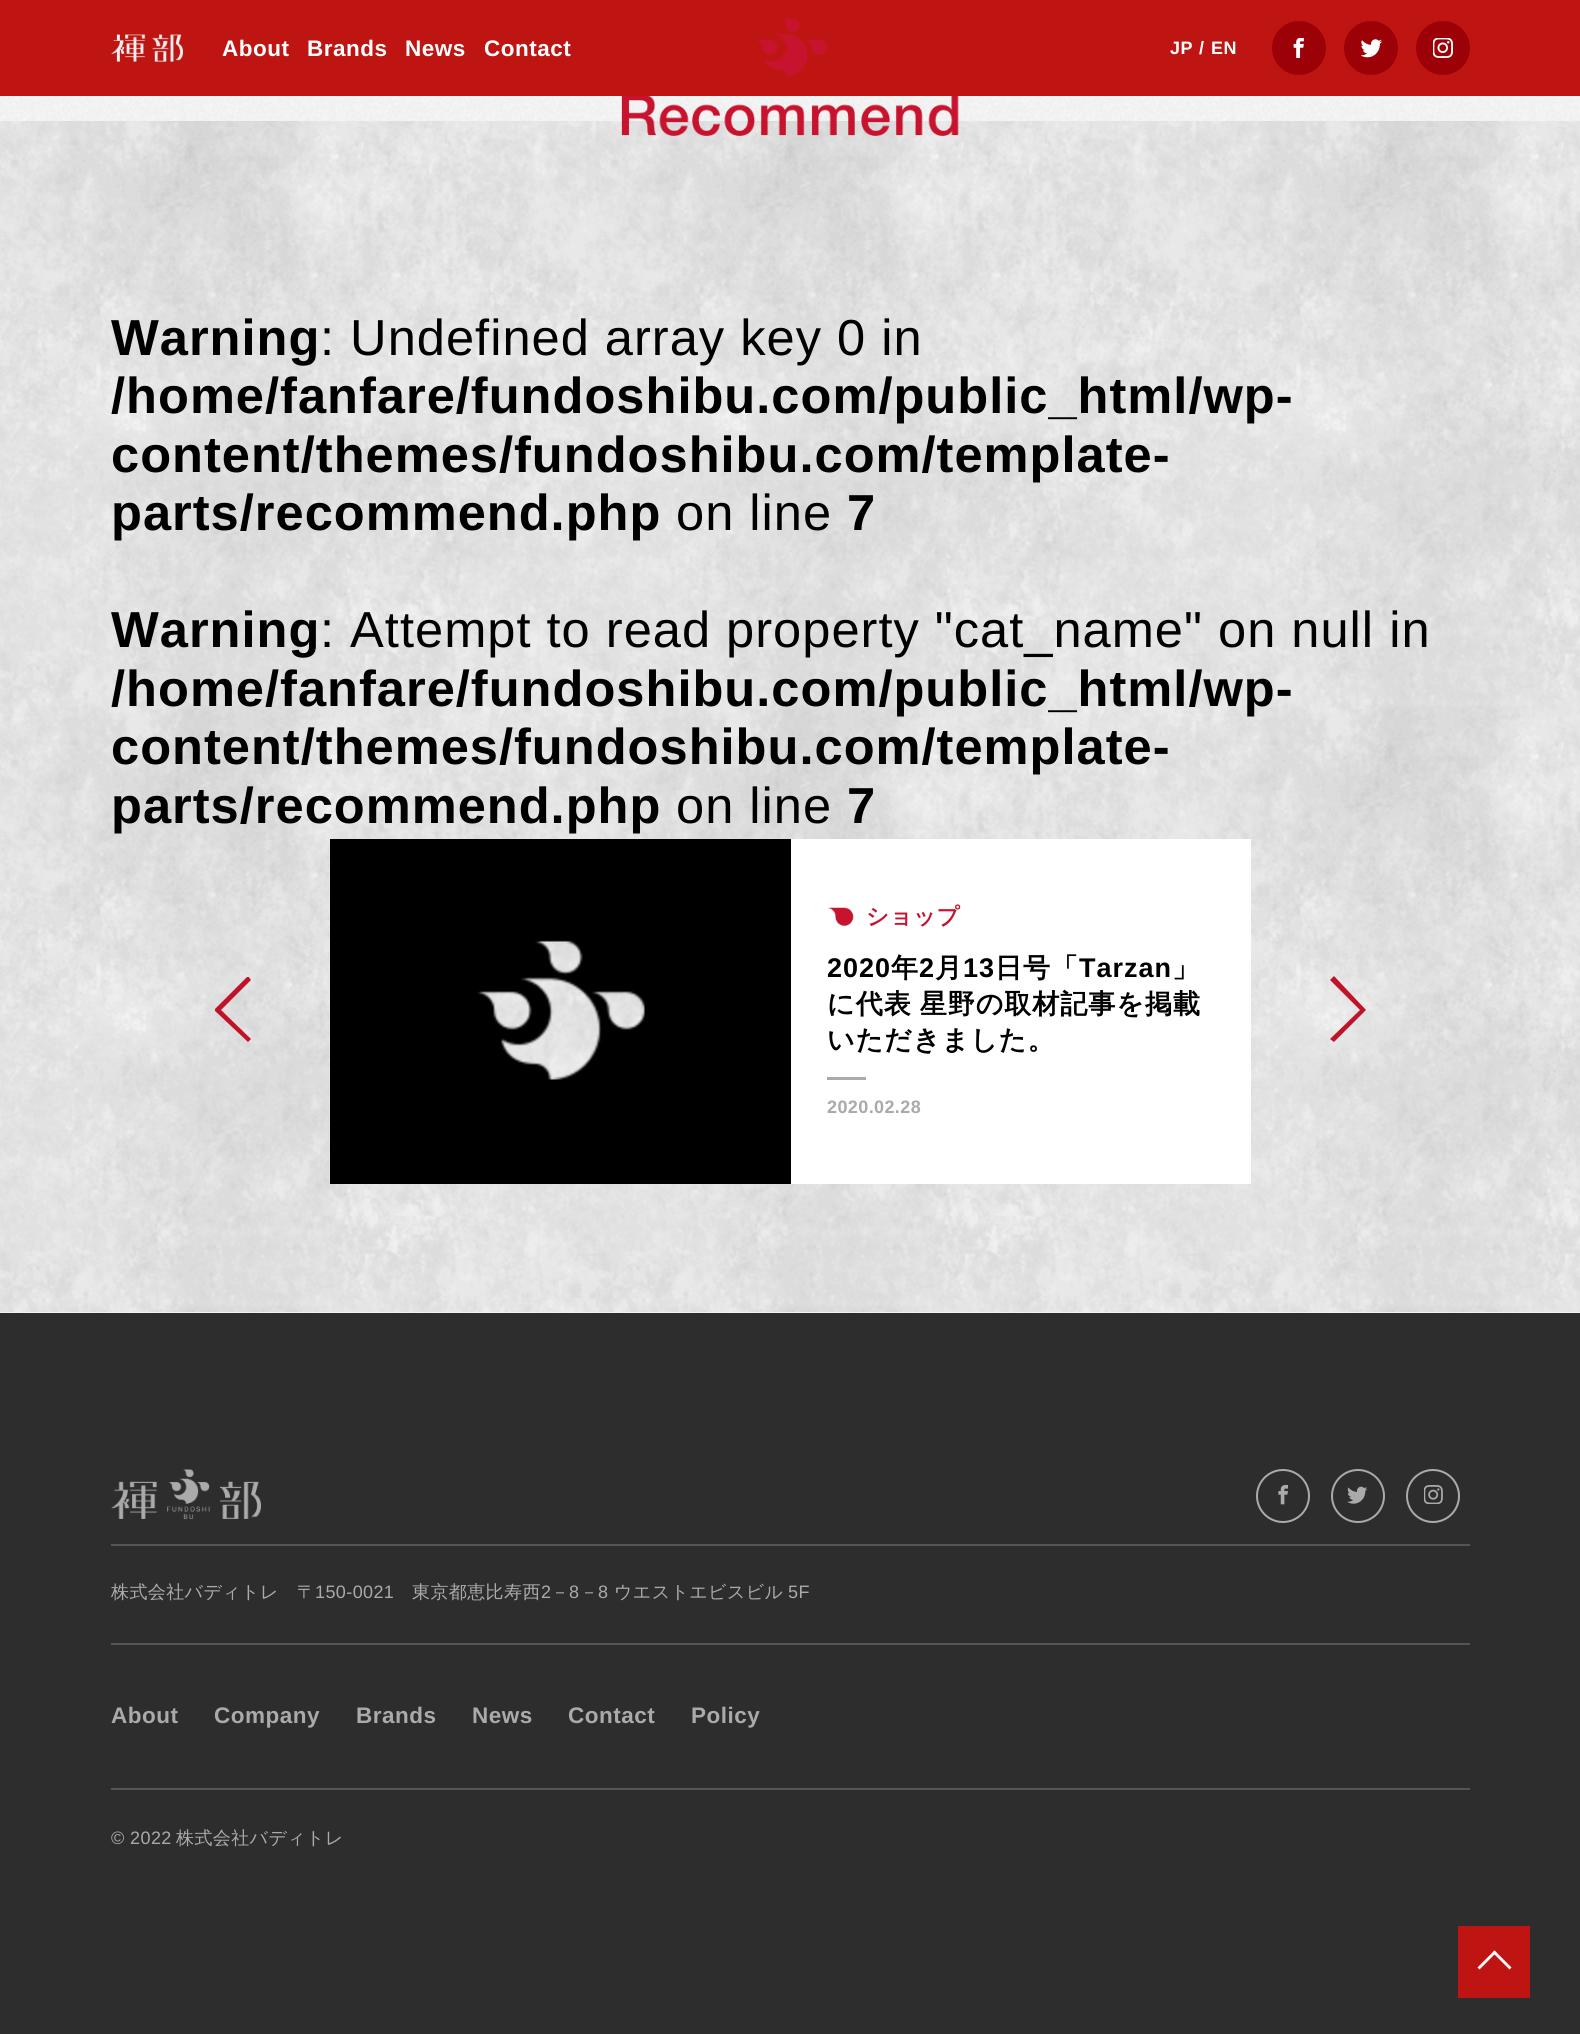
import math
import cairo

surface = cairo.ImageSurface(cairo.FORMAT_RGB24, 1580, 2034)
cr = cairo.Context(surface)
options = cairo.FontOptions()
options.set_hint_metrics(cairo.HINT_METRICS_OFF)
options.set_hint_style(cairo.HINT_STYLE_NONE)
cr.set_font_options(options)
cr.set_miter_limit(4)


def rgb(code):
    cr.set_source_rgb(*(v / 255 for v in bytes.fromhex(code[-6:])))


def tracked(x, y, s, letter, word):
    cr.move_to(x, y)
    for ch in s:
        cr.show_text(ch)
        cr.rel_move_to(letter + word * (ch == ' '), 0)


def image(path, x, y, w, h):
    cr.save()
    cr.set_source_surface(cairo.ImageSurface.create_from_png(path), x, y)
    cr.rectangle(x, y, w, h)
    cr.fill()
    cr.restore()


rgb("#ffffff")
cr.paint()
image("img/1.png", 0, 96, 1580, 1217)
rgb("#be1513")
cr.rectangle(0, 0, 1580, 96)
cr.fill()
image("img/2.png", 756, 18, 71, 58)
image("img/3.png", 111, 34, 72, 28)
rgb("#9d0108")
cr.arc(1299, 48, 27, 0, 2 * math.pi)
cr.fill()
image("img/4.png", 1293, 38, 11, 20)
cr.arc(1371, 48, 27, 0, 2 * math.pi)
cr.fill()
image("img/5.png", 1361, 39, 21, 19)
cr.arc(1443, 48, 27, 0, 2 * math.pi)
cr.fill()
image("img/6.png", 1433, 38, 20, 20)
image("img/7.png", 0, 121, 1580, 1191)
image("img/8.png", 621, 96, 338, 40)
cr.save()
cr.rectangle(215, 977, 40, 66)
cr.clip()
rgb("#c01329")
cr.new_path()
cr.move_to(214, 1010)
cr.line_to(248, 976)
cr.line_to(251, 980)
cr.line_to(221, 1010)
cr.line_to(251, 1039)
cr.line_to(248, 1042)
cr.close_path()
cr.fill()
cr.restore()
rgb("#ffffff")
cr.rectangle(791, 839, 460, 345)
cr.fill()
rgb("#000000")
cr.rectangle(330, 839, 461, 345)
cr.fill()
image("img/9.png", 477, 940, 168, 140)
image("img/10.png", 827, 907, 27, 19)
rgb("#aaaaaa")
cr.rectangle(827, 1077, 39, 3)
cr.fill()
rgb("#c01329")
cr.new_path()
cr.move_to(1366, 1010)
cr.line_to(1334, 1042)
cr.line_to(1330, 1039)
cr.line_to(1360, 1010)
cr.line_to(1330, 980)
cr.line_to(1334, 976)
cr.close_path()
cr.fill()
rgb("#2d2d2d")
cr.rectangle(0, 1313, 1580, 721)
cr.fill()
image("img/11.png", 111, 1469, 150, 50)
image("img/12.png", 1278, 1485, 10, 20)
cr.arc(1283, 1496, 26, 0, 2 * math.pi)
rgb("#aaaaaa")
cr.stroke()
image("img/13.png", 1347, 1486, 21, 18)
cr.arc(1358, 1496, 26, 0, 2 * math.pi)
cr.stroke()
image("img/14.png", 1424, 1485, 19, 19)
cr.arc(1433, 1496, 26, 0, 2 * math.pi)
cr.stroke()
for x, y, w, h, color in [
    (111, 1544, 1359, 2, "#555555"),
    (111, 1643, 1359, 2, "#555555"),
    (111, 1788, 1359, 2, "#555555"),
    (1458, 1926, 72, 72, "#be1513"),
]:
    rgb(color)
    cr.rectangle(x, y, w, h)
    cr.fill()
rgb("#ffffff")
cr.new_path()
cr.move_to(1477.5, 1967.5)
cr.line_to(1494.5, 1950.5)
cr.line_to(1496.5, 1952.5)
cr.line_to(1479.5, 1969.5)
cr.close_path()
cr.fill()
cr.new_path()
cr.move_to(1492.5, 1952.5)
cr.line_to(1494.5, 1950.5)
cr.line_to(1511.5, 1967.5)
cr.line_to(1509.5, 1969.5)
cr.close_path()
cr.fill()
cr.select_font_face("Liberation Sans", cairo.FONT_SLANT_NORMAL, cairo.FONT_WEIGHT_BOLD)
cr.set_font_size(22.5)
for x, y, s in [
    (222, 56, "About"),
    (307, 56, "Brands"),
    (405, 56, "News"),
    (484, 56, "Contact"),
]:
    tracked(x, y, s, 0.5, 0)
cr.set_font_size(18)
for x, y, s in [
    (1170, 54, "JP"),
    (1199, 54, "/"),
    (1211, 54, "EN"),
]:
    tracked(x, y, s, 0.4, 0)
cr.set_font_size(50.6)
rgb("#000000")
tracked(111, 355, "Warning", 1, 0)
cr.select_font_face("Liberation Sans")
tracked(320, 355, ": Undefined array key 0 in", 1, 0)
cr.select_font_face("Liberation Sans", cairo.FONT_SLANT_NORMAL, cairo.FONT_WEIGHT_BOLD)
for x, y, s in [
    (111, 413, "/home/fanfare/fundoshibu.com/public_html/wp-"),
    (111, 472, "content/themes/fundoshibu.com/template-"),
    (111, 530, "parts/recommend.php"),
]:
    tracked(x, y, s, 1, 0)
cr.select_font_face("Liberation Sans")
tracked(676, 530, "on line", 1, 0)
cr.select_font_face("Liberation Sans", cairo.FONT_SLANT_NORMAL, cairo.FONT_WEIGHT_BOLD)
tracked(847, 530, "7", 1, 0)
tracked(111, 647, "Warning", 1, 0)
cr.select_font_face("Liberation Sans")
tracked(320, 647, ": Attempt to read property \"cat_name\" on null in", 1, 0)
cr.select_font_face("Liberation Sans", cairo.FONT_SLANT_NORMAL, cairo.FONT_WEIGHT_BOLD)
for x, y, s in [
    (111, 706, "/home/fanfare/fundoshibu.com/public_html/wp-"),
    (111, 764, "content/themes/fundoshibu.com/template-"),
    (111, 823, "parts/recommend.php"),
]:
    tracked(x, y, s, 1, 0)
cr.select_font_face("Liberation Sans")
tracked(676, 823, "on line", 1, 0)
cr.select_font_face("Liberation Sans", cairo.FONT_SLANT_NORMAL, cairo.FONT_WEIGHT_BOLD)
tracked(847, 823, "7", 1, 0)
cr.select_font_face("WenQuanYi Zen Hei", cairo.FONT_SLANT_NORMAL, cairo.FONT_WEIGHT_BOLD)
cr.set_font_size(22.5)
rgb("#c8132e")
tracked(866, 924, "ショップ", 0.5, 0)
cr.select_font_face("Liberation Sans", cairo.FONT_SLANT_NORMAL, cairo.FONT_WEIGHT_BOLD)
cr.set_font_size(27)
rgb("#000000")
tracked(827, 977, "2020", 1, 0)
cr.select_font_face("WenQuanYi Zen Hei", cairo.FONT_SLANT_NORMAL, cairo.FONT_WEIGHT_BOLD)
tracked(891, 977, "年", 1, 0)
cr.select_font_face("Liberation Sans", cairo.FONT_SLANT_NORMAL, cairo.FONT_WEIGHT_BOLD)
tracked(919, 977, "2", 1, 0)
cr.select_font_face("WenQuanYi Zen Hei", cairo.FONT_SLANT_NORMAL, cairo.FONT_WEIGHT_BOLD)
tracked(935, 977, "月", 1, 0)
cr.select_font_face("Liberation Sans", cairo.FONT_SLANT_NORMAL, cairo.FONT_WEIGHT_BOLD)
tracked(963, 977, "13", 1, 0)
cr.select_font_face("WenQuanYi Zen Hei", cairo.FONT_SLANT_NORMAL, cairo.FONT_WEIGHT_BOLD)
tracked(995, 977, "日号「", 1, 0)
cr.select_font_face("Liberation Sans", cairo.FONT_SLANT_NORMAL, cairo.FONT_WEIGHT_BOLD)
tracked(1079, 977, "Tarzan", 1, 0)
cr.select_font_face("WenQuanYi Zen Hei", cairo.FONT_SLANT_NORMAL, cairo.FONT_WEIGHT_BOLD)
tracked(1172, 977, "」", 1, 0)
tracked(827, 1013, "に代表 星野の取材記事を掲載", 1, -1)
tracked(827, 1049, "いただきました。", 1, 0)
cr.select_font_face("Liberation Sans", cairo.FONT_SLANT_NORMAL, cairo.FONT_WEIGHT_BOLD)
cr.set_font_size(18)
rgb("#aaaaaa")
tracked(827, 1113, "2020.02.28", 0.4, 0)
cr.select_font_face("WenQuanYi Zen Hei Medium")
tracked(111, 1598, "株式会社バディトレ　〒", 0.4, 0)
cr.select_font_face("Liberation Sans")
tracked(315, 1598, "150-0021", 0.4, 0)
cr.select_font_face("WenQuanYi Zen Hei Medium")
tracked(412, 1598, "東京都恵比寿西", 0.4, 0)
cr.select_font_face("Liberation Sans")
tracked(541, 1598, "2", 0.4, 0)
cr.select_font_face("WenQuanYi Zen Hei Medium")
tracked(551, 1598, "－", 0.4, 0)
cr.select_font_face("Liberation Sans")
tracked(569, 1598, "8", 0.4, 0)
cr.select_font_face("WenQuanYi Zen Hei Medium")
tracked(580, 1598, "－", 0.4, 0)
cr.select_font_face("Liberation Sans")
tracked(598, 1598, "8", 0.4, 0)
cr.select_font_face("WenQuanYi Zen Hei Medium")
tracked(614, 1598, "ウエストエビスビル", 0.4, 0)
cr.select_font_face("Liberation Sans")
tracked(788, 1598, "5F", 0.4, 0)
cr.select_font_face("Liberation Sans", cairo.FONT_SLANT_NORMAL, cairo.FONT_WEIGHT_BOLD)
cr.set_font_size(22.5)
for x, y, s in [
    (111, 1723, "About"),
    (214, 1723, "Company"),
    (356, 1723, "Brands"),
    (472, 1723, "News"),
    (568, 1723, "Contact"),
    (691, 1723, "Policy"),
]:
    tracked(x, y, s, 0.5, 0)
cr.select_font_face("Liberation Sans")
cr.set_font_size(18)
tracked(111, 1844, "© 2022", 0.4, 0)
cr.select_font_face("WenQuanYi Zen Hei Medium")
tracked(176, 1844, "株式会社バディトレ", 0.4, 0)
surface.write_to_png("page.png")
